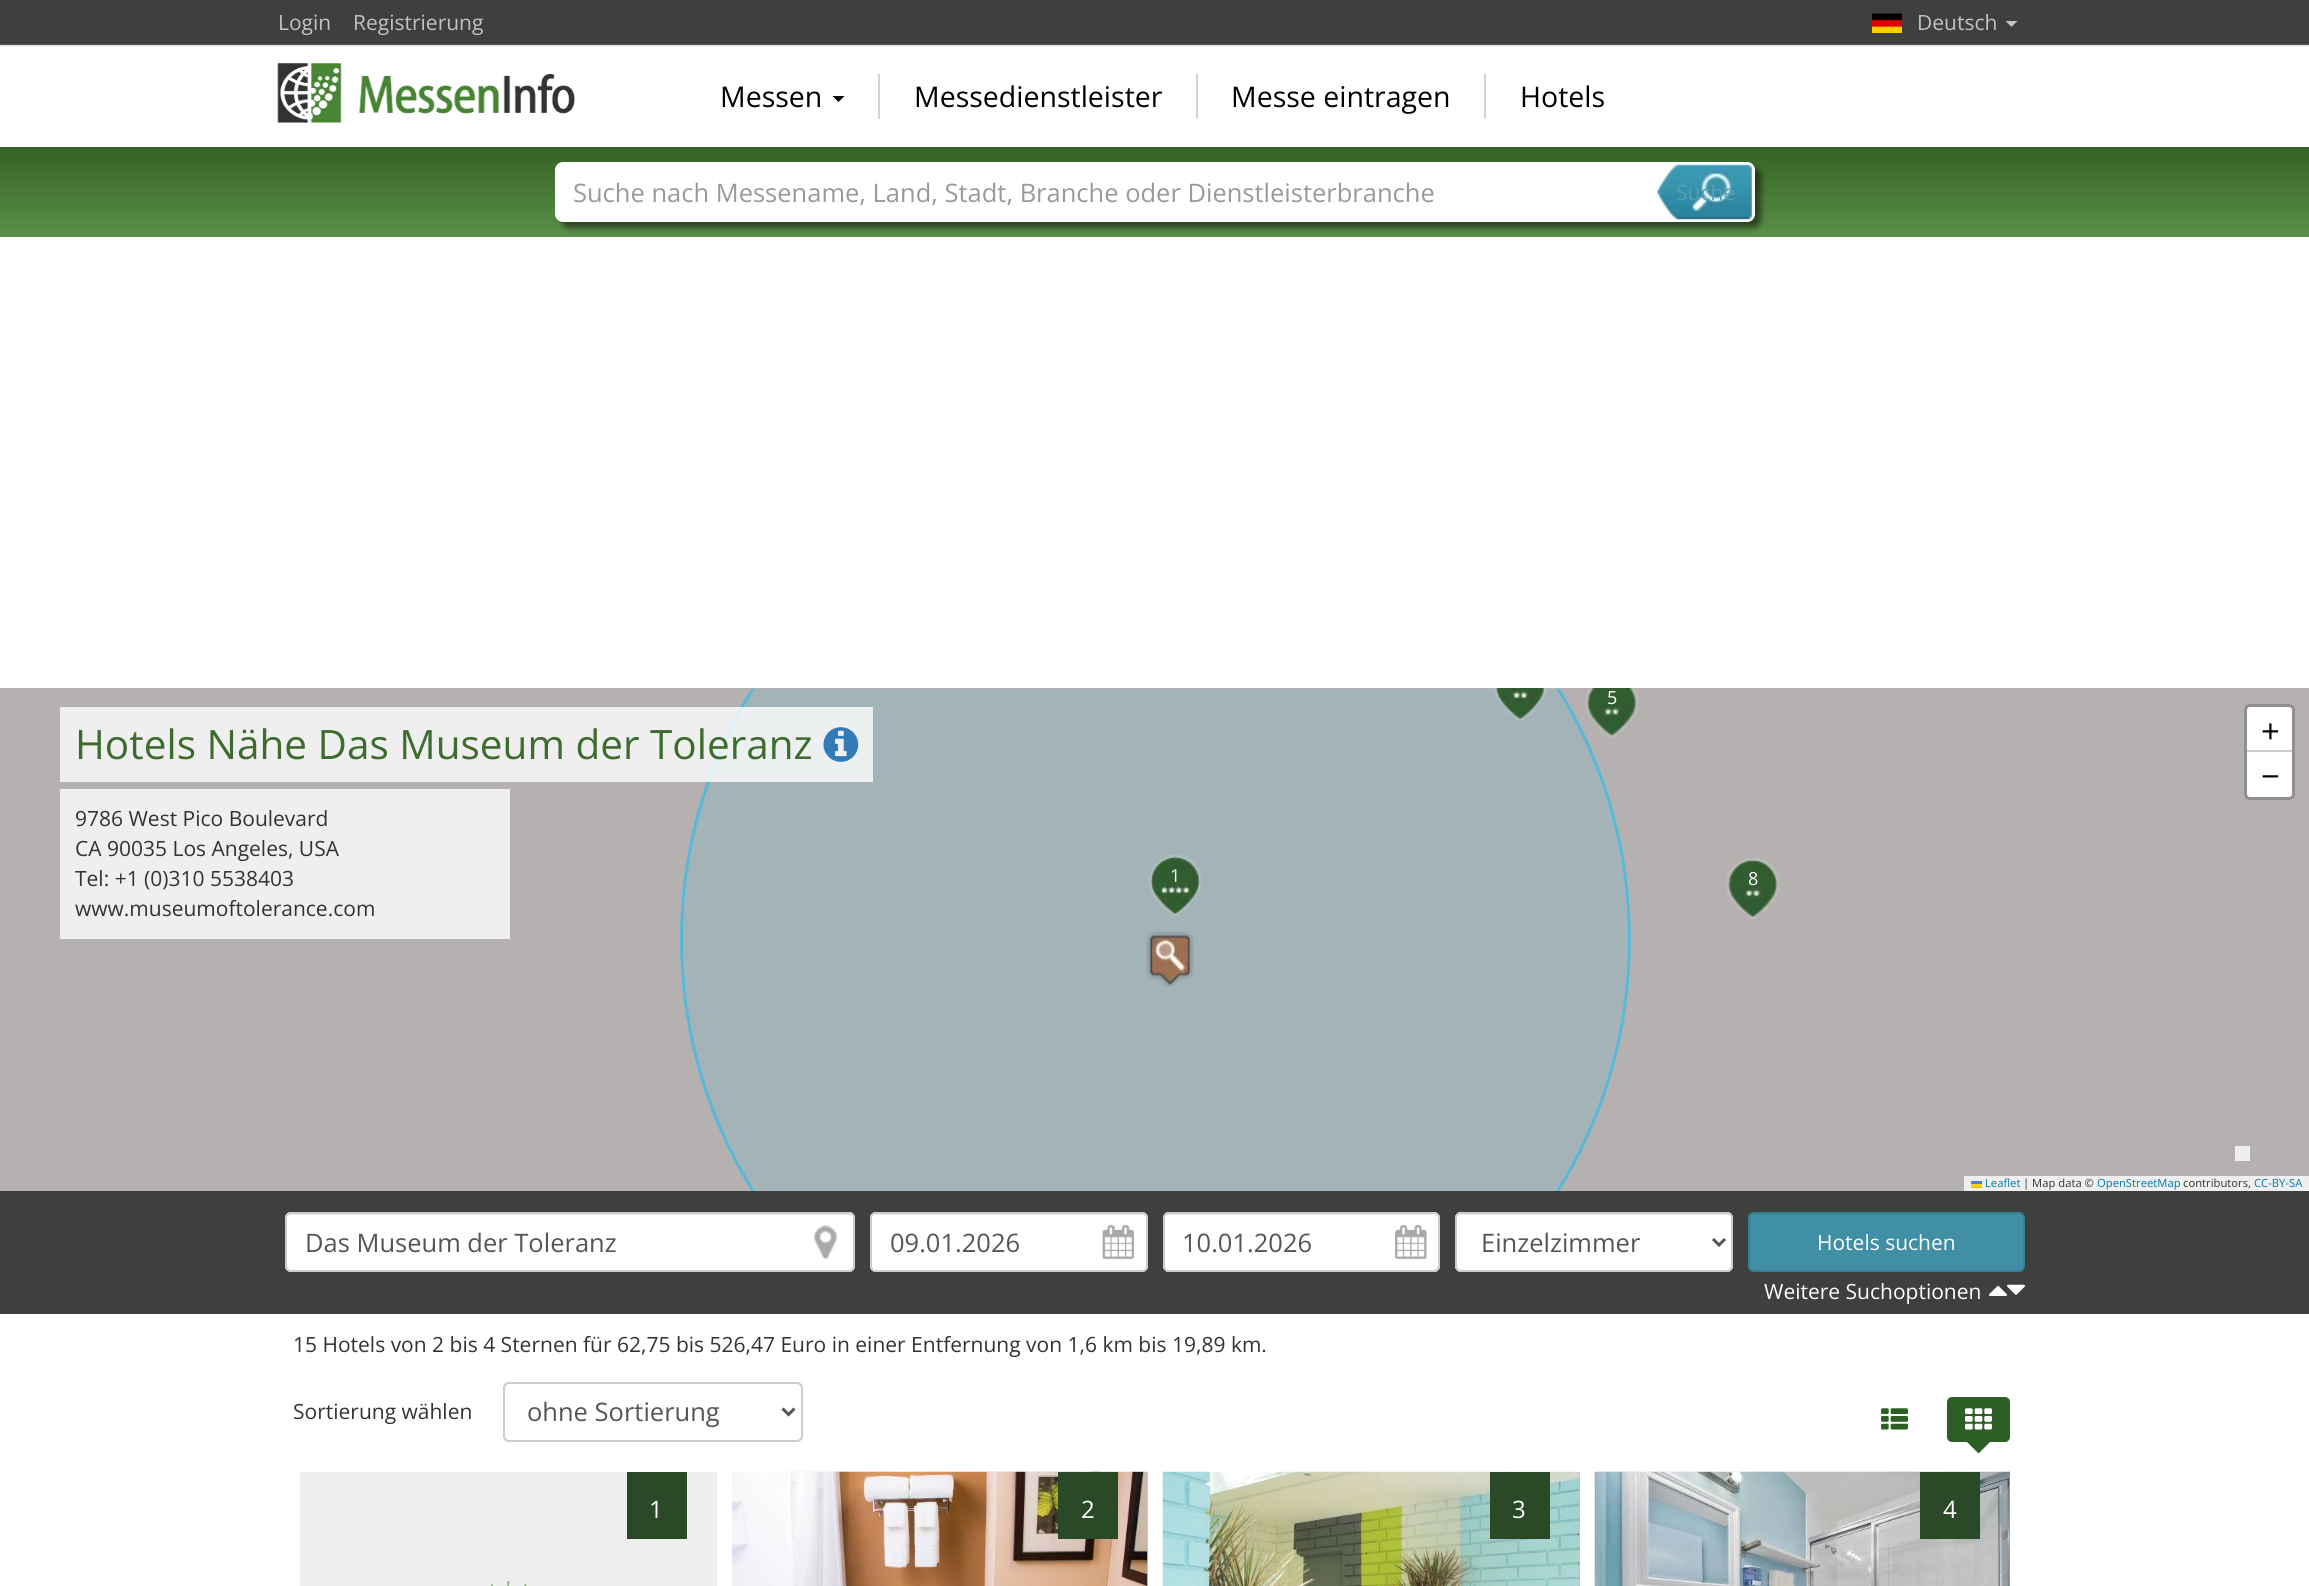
import math
import cairo

surface = cairo.ImageSurface(cairo.FORMAT_RGB24, 2309, 1586)
cr = cairo.Context(surface)
options = cairo.FontOptions()
options.set_hint_metrics(cairo.HINT_METRICS_OFF)
options.set_hint_style(cairo.HINT_STYLE_NONE)
cr.set_font_options(options)
cr.set_miter_limit(4)


def rgb(code):
    cr.set_source_rgb(*(v / 255 for v in bytes.fromhex(code[-6:])))


def rrect(x, y, w, h, r):
    cr.new_sub_path()
    for i, (u, v) in enumerate([(x + w - r, y + h - r), (x + r, y + h - r), (x + r, y + r), (x + w - r, y + r)]):
        cr.arc(u, v, r, i * math.pi / 2, (i + 1) * math.pi / 2)
    cr.close_path()


def soft_shadow(x, y, w, h, r, blur, alpha):
    cr.push_group_with_content(cairo.CONTENT_ALPHA)
    cr.set_operator(cairo.OPERATOR_SOURCE)
    for i in range(15, -16, -2):
        e = blur * i / 6
        if min(w, h) + 2 * e > 0:
            cr.set_source_rgba(0, 0, 0, alpha * math.erfc((i - 1) / 8.5) / 2)
            rrect(x - e, y - e, w + 2 * e, h + 2 * e, max(0, min(r + e + blur * .6, min(w, h) / 2 + e)))
            cr.fill()
    cr.mask(cr.pop_group())


def image(path, x, y, w, h):
    cr.save()
    cr.set_source_surface(cairo.ImageSurface.create_from_png(path), x, y)
    cr.rectangle(x, y, w, h)
    cr.fill()
    cr.restore()


rgb("#ffffff")
cr.paint()
image("img/1.png", 0, 0, 2309, 46)
image("img/2.png", 1872, 13, 30, 20)
rgb("#c1c2c1")
cr.new_path()
cr.move_to(2005.5, 21)
cr.line_to(2017.5, 21)
cr.line_to(2011.5, 27)
cr.close_path()
cr.fill()
image("img/3.png", 277, 63, 298, 60)
rgb("#000000")
cr.new_path()
cr.move_to(832.5, 96)
cr.line_to(844.5, 96)
cr.line_to(838.5, 102)
cr.close_path()
cr.fill()
for x, y, w, h, color in [
    (878, 74, 2, 45, "#d3d3d3"),
    (1196, 74, 2, 45, "#d3d3d3"),
    (1484, 74, 2, 45, "#d3d3d3"),
]:
    rgb(color)
    cr.rectangle(x, y, w, h)
    cr.fill()
gradient = cairo.LinearGradient(1155, 147, 1155, 237)
gradient.add_color_stop_rgba(0, 0.208, 0.384, 0.149, 1)
gradient.add_color_stop_rgba(1, 0.357, 0.565, 0.286, 1)
cr.set_source(gradient)
cr.rectangle(0, 147, 2309, 90)
cr.fill()
rgb("#000000")
soft_shadow(561, 168, 1200, 60, 8, 3, 0.5)
rgb("#ffffff")
rrect(555, 162, 1200, 60, 8)
cr.fill()
image("img/4.png", 1657, 164, 95, 57)
rgb("#b5b1b0")
cr.rectangle(0, 688, 2309, 503)
cr.fill()
image("img/6.png", 680, 689, 951, 502)
cr.set_source_rgba(1, 1, 1, 0.8)
cr.rectangle(60, 707, 813, 75)
cr.fill()
image("img/5.png", 823, 727, 36, 35)
rgb("#f0efef")
cr.rectangle(60, 789, 450, 150)
cr.fill()
image("img/7.png", 1494, 688, 53, 34)
image("img/8.png", 1586, 688, 53, 50)
image("img/9.png", 1149, 855, 53, 62)
image("img/10.png", 1726, 858, 53, 62)
image("img/11.png", 1146, 931, 48, 56)
rrect(2245.5, 705.5, 48, 93, 4.5)
rgb("#918e8d")
cr.set_line_width(3)
cr.stroke()
rgb("#ffffff")
cr.new_path()
cr.move_to(2250, 707)
cr.line_to(2289, 707)
cr.curve_to(2290.5, 707, 2292, 708.5, 2292, 710)
cr.line_to(2292, 752)
cr.line_to(2247, 752)
cr.line_to(2247, 710)
cr.curve_to(2247, 708.5, 2248.5, 707, 2250, 707)
cr.close_path()
cr.fill()
rgb("#cccccc")
cr.rectangle(2247, 750, 45, 2)
cr.fill()
rgb("#ffffff")
cr.new_path()
cr.move_to(2247, 752)
cr.line_to(2292, 752)
cr.line_to(2292, 794)
cr.curve_to(2292, 795.5, 2290.5, 797, 2289, 797)
cr.line_to(2250, 797)
cr.curve_to(2248.5, 797, 2247, 795.5, 2247, 794)
cr.close_path()
cr.fill()
for x, y, w, h, color in [
    (1964, 1176, 345, 15, "#f0efef"),
    (1971, 1181, 11, 3, "#4c7be1"),
    (1971, 1184, 11, 3, "#ffd500"),
    (1971, 1187, 11, 1, "#e0bc00"),
    (2235, 1146, 15, 15, "#f0efef"),
    (0, 1191, 2309, 123, "#3e403d"),
]:
    rgb(color)
    cr.rectangle(x, y, w, h)
    cr.fill()
rgb("#ffffff")
rrect(285, 1212, 570, 60, 6)
cr.fill()
image("img/12.png", 814, 1225, 23, 34)
rgb("#ececec")
cr.new_path()
cr.move_to(291, 1215)
cr.line_to(849, 1215)
cr.curve_to(851, 1215, 854, 1217, 854, 1220)
cr.line_to(854, 1219)
cr.curve_to(854, 1216, 852, 1214, 849, 1214)
cr.line_to(292, 1214)
cr.curve_to(290, 1214, 289, 1215, 288, 1216)
cr.close_path()
cr.fill()
rrect(286, 1213, 568, 58, 5)
rgb("#cccccc")
cr.set_line_width(2)
cr.stroke()
rgb("#ffffff")
rrect(870, 1212, 278, 60, 6)
cr.fill()
image("img/13.png", 1102, 1224, 32, 36)
rgb("#ececec")
cr.new_path()
cr.move_to(876, 1215)
cr.line_to(1142, 1215)
cr.line_to(1145, 1216)
cr.line_to(1146, 1220)
cr.curve_to(1146, 1217, 1144, 1214, 1141, 1214)
cr.line_to(877, 1214)
cr.curve_to(874, 1214, 872, 1217, 872, 1220)
cr.curve_to(872, 1217, 874, 1215, 876, 1215)
cr.close_path()
cr.fill()
rrect(871, 1213, 276, 58, 5)
rgb("#cccccc")
cr.stroke()
rgb("#ffffff")
rrect(1163, 1212, 277, 60, 6)
cr.fill()
image("img/14.png", 1395, 1224, 32, 36)
rgb("#ececec")
cr.new_path()
cr.move_to(1168, 1215)
cr.line_to(1434, 1215)
cr.curve_to(1436, 1215, 1438, 1217, 1438, 1220)
cr.line_to(1438, 1269)
cr.curve_to(1439, 1268, 1439, 1267, 1439, 1266)
cr.line_to(1439, 1219)
cr.curve_to(1439, 1216, 1437, 1214, 1434, 1214)
cr.line_to(1169, 1214)
cr.curve_to(1166, 1214, 1164, 1216, 1164, 1219)
cr.line_to(1164, 1220)
cr.curve_to(1164, 1217, 1166, 1215, 1168, 1215)
cr.close_path()
cr.fill()
rrect(1164, 1213, 275, 58, 5)
rgb("#cccccc")
cr.stroke()
rgb("#ffffff")
rrect(1455, 1212, 278, 60, 6)
cr.fill()
rgb("#ececec")
cr.new_path()
cr.move_to(1461, 1215)
cr.line_to(1726, 1215)
cr.curve_to(1729, 1215, 1731, 1217, 1731, 1220)
cr.line_to(1731, 1219)
cr.curve_to(1731, 1216, 1729, 1214, 1726, 1214)
cr.line_to(1462, 1214)
cr.curve_to(1460, 1214, 1459, 1215, 1458, 1216)
cr.close_path()
cr.fill()
rrect(1456, 1213, 276, 58, 5)
rgb("#cccccc")
cr.stroke()
cr.new_path()
cr.move_to(1713, 1239)
cr.line_to(1719, 1245)
cr.line_to(1725, 1239)
rgb("#555555")
cr.set_line_width(3)
cr.stroke()
rgb("#408fa5")
rrect(1749, 1213, 275, 58, 5)
cr.fill_preserve()
rgb("#397f93")
cr.set_line_width(2)
cr.stroke()
image("img/15.png", 1989, 1285, 18, 11)
image("img/16.png", 2007, 1284, 18, 11)
rgb("#ececec")
cr.new_path()
cr.move_to(508, 1384)
cr.line_to(796, 1384)
cr.curve_to(799, 1384, 801, 1387, 801, 1389)
cr.line_to(801, 1388)
cr.curve_to(801, 1385, 799, 1383, 796, 1383)
cr.line_to(509, 1383)
cr.curve_to(506, 1383, 504, 1385, 504, 1388)
cr.line_to(504, 1389)
cr.curve_to(504, 1387, 506, 1384, 508, 1384)
cr.close_path()
cr.fill()
rrect(504, 1383, 298, 58, 5)
rgb("#cccccc")
cr.stroke()
cr.new_path()
cr.move_to(782.5, 1408.5)
cr.line_to(788.5, 1414.5)
cr.line_to(794.5, 1408.5)
rgb("#555555")
cr.set_line_width(3)
cr.stroke()
image("img/17.png", 1881, 1408, 27, 22)
rgb("#2d5f24")
rrect(1947, 1397, 63, 45, 5)
cr.fill()
image("img/18.png", 1965, 1408, 27, 22)
cr.new_path()
cr.move_to(1966.5, 1441.5)
cr.line_to(1990.5, 1441.5)
cr.line_to(1978.5, 1453.5)
cr.close_path()
cr.fill()
image("img/19.png", 300, 1471, 417, 115)
rgb("#2a4a27")
cr.rectangle(627, 1472, 60, 67)
cr.fill()
rgb("#add1a0")
cr.rectangle(1147, 1472, 1, 114)
cr.fill()
image("img/20.png", 732, 1471, 416, 115)
rgb("#2a4a27")
cr.rectangle(1058, 1472, 60, 67)
cr.fill()
rgb("#add1a0")
cr.rectangle(1579, 1472, 1, 114)
cr.fill()
image("img/21.png", 1162, 1471, 418, 115)
rgb("#2a4a27")
cr.rectangle(1490, 1472, 60, 67)
cr.fill()
image("img/22.png", 1594, 1471, 416, 115)
cr.rectangle(1920, 1472, 60, 67)
cr.fill()
cr.select_font_face("Open Sans")
cr.set_font_size(21)
rgb("#c1c2c1")
for x, y, s in [
    (278, 30, "Login"),
    (353, 30, "Registrierung"),
    (1917, 30, "Deutsch"),
]:
    cr.move_to(x, y)
    cr.show_text(s)
cr.set_font_size(28.5)
rgb("#000000")
for x, y, s in [
    (720, 107, "Messen"),
    (914, 107, "Messedienstleister"),
    (1231, 107, "Messe eintragen"),
    (1520, 107, "Hotels"),
]:
    cr.move_to(x, y)
    cr.show_text(s)
cr.set_font_size(25.5)
rgb("#999999")
cr.move_to(573, 202)
cr.show_text("Suche nach Messename, Land, Stadt, Branche oder Dienstleisterbranche")
cr.set_font_size(21)
rgb("#52a0b5")
cr.move_to(1676, 200)
cr.show_text("Suche")
cr.set_font_size(40.5)
rgb("#3e6c2f")
cr.move_to(75, 759)
cr.show_text("Hotels Nähe Das Museum der Toleranz")
cr.set_font_size(21)
rgb("#333333")
for x, y, s in [
    (75, 826, "9786 West Pico Boulevard"),
    (75, 856, "CA 90035 Los Angeles, USA"),
    (75, 886, "Tel: +1 (0)310 5538403"),
    (75, 916, "www.museumoftolerance.com"),
]:
    cr.move_to(x, y)
    cr.show_text(s)
cr.set_font_size(18)
rgb("#ffffff")
for x, y, s in [
    (1607, 704, "5"),
    (1170, 882, "1"),
    (1748, 885, "8"),
]:
    cr.move_to(x, y)
    cr.show_text(s)
cr.set_font_size(33)
rgb("#000000")
cr.move_to(2261, 743)
cr.show_text("+")
cr.move_to(2261, 788)
cr.show_text("−")
cr.set_font_size(11.25)
rgb("#0078a8")
cr.move_to(1985, 1187)
cr.show_text("Leaflet")
rgb("#333333")
cr.move_to(2023, 1187)
cr.show_text("| Map data ©")
rgb("#0078a8")
cr.move_to(2097, 1187)
cr.show_text("OpenStreetMap")
rgb("#333333")
cr.move_to(2183, 1187)
cr.show_text("contributors,")
rgb("#0078a8")
cr.move_to(2254, 1187)
cr.show_text("CC-BY-SA")
cr.set_font_size(25.5)
rgb("#555555")
for x, y, s in [
    (305, 1252, "Das Museum der Toleranz"),
    (890, 1252, "09.01.2026"),
    (1182, 1252, "10.01.2026"),
    (1481, 1252, "Einzelzimmer"),
]:
    cr.move_to(x, y)
    cr.show_text(s)
cr.set_font_size(21)
rgb("#ffffff")
cr.move_to(1817, 1250)
cr.show_text("Hotels suchen")
cr.move_to(1764, 1299)
cr.show_text("Weitere Suchoptionen")
rgb("#333333")
cr.move_to(293, 1352)
cr.show_text("15 Hotels von 2 bis 4 Sternen für 62,75 bis 526,47 Euro in einer Entfernung von 1,6 km bis 19,89 km.")
cr.move_to(293, 1419)
cr.show_text("Sortierung wählen")
cr.set_font_size(25.5)
rgb("#555555")
cr.move_to(527, 1421)
cr.show_text("ohne Sortierung")
cr.set_font_size(24)
rgb("#ffffff")
for x, y, s in [
    (649, 1518, "1"),
    (1081, 1518, "2"),
    (1512, 1518, "3"),
    (1943, 1518, "4"),
]:
    cr.move_to(x, y)
    cr.show_text(s)
surface.write_to_png("page.png")
